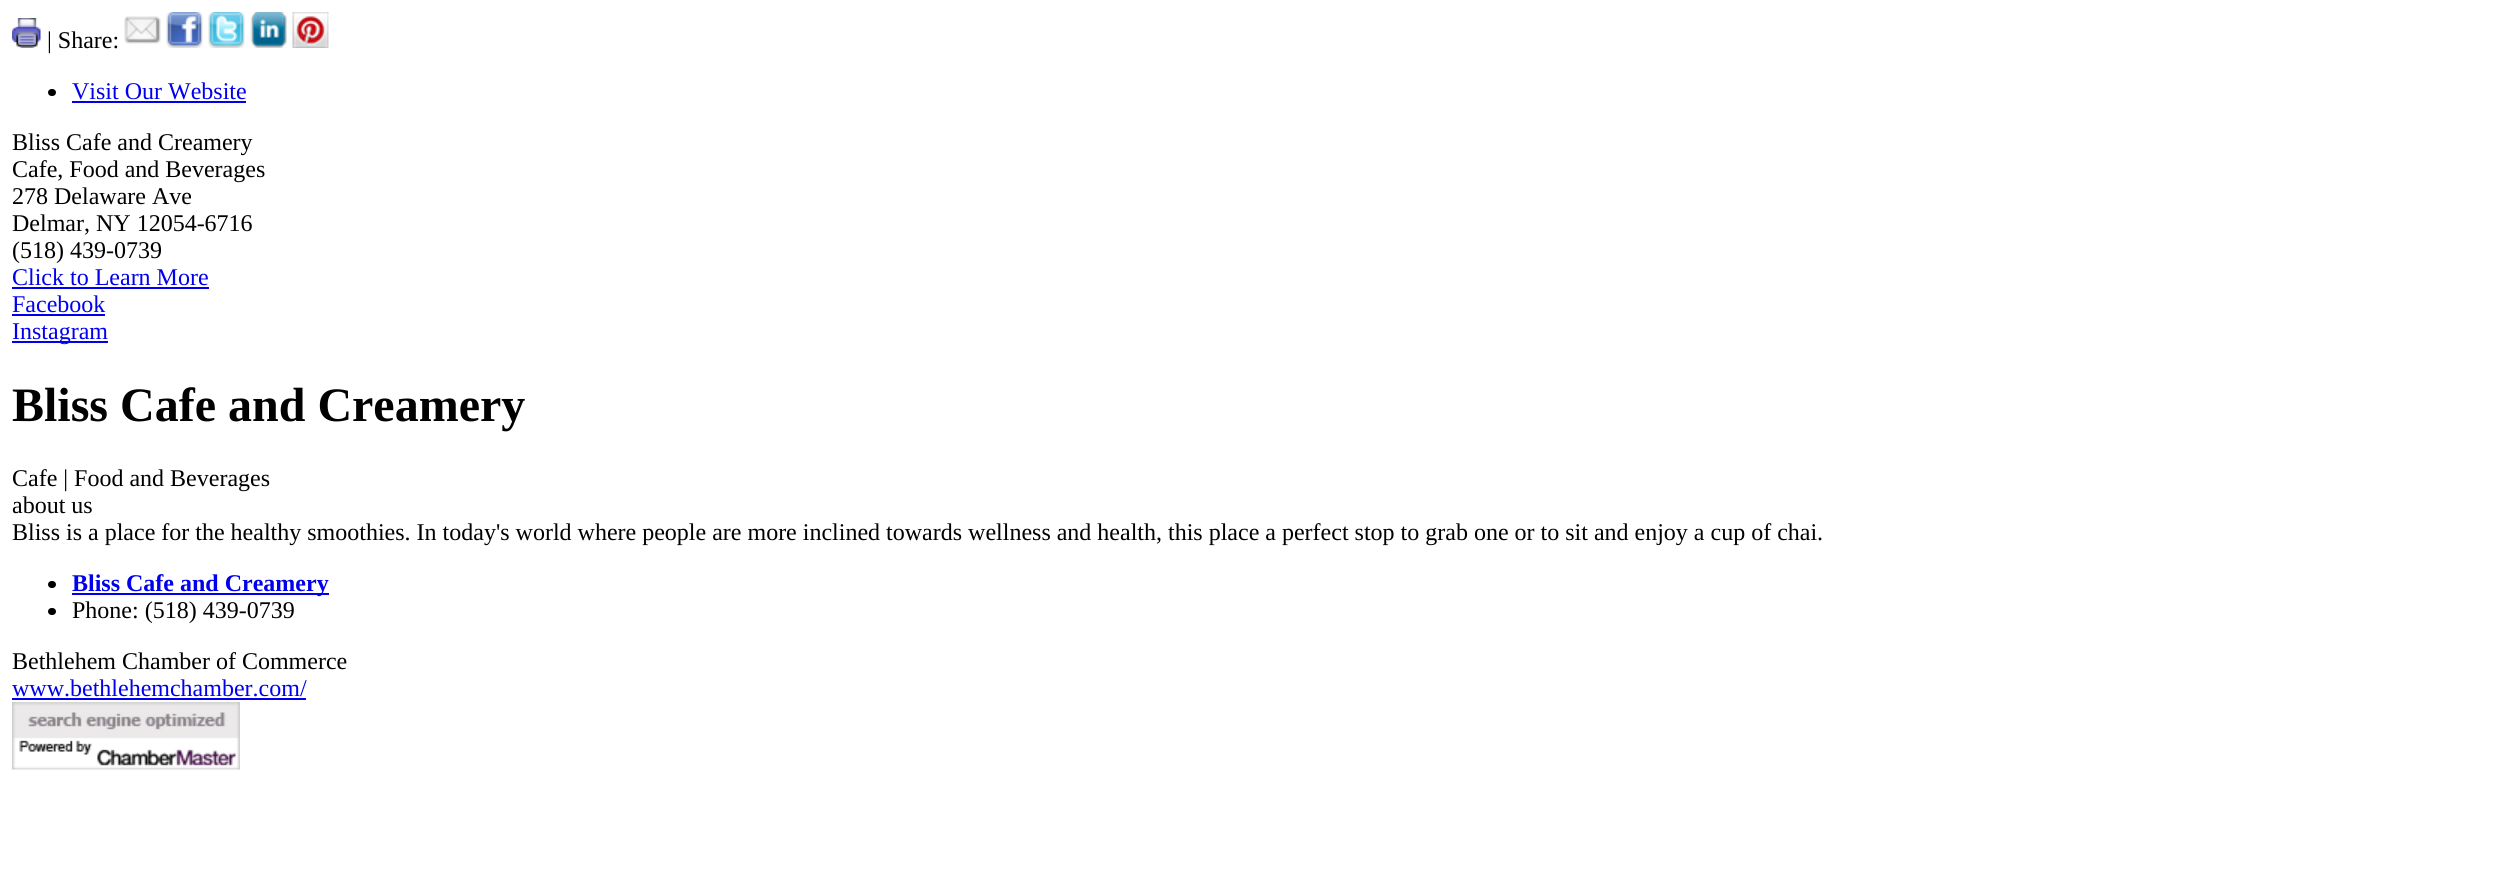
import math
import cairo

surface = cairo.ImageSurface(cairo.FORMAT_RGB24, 2511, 876)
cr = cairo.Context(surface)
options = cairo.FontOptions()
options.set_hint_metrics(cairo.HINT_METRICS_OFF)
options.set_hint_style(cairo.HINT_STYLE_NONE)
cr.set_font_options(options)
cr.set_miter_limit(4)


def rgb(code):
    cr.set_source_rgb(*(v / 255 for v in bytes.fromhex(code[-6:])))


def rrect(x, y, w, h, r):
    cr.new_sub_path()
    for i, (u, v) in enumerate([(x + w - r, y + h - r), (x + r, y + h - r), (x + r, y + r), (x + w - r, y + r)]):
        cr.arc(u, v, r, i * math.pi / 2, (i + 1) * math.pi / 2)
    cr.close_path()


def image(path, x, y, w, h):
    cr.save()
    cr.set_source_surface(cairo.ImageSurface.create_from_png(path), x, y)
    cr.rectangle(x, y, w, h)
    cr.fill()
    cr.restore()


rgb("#ffffff")
cr.paint()
image("img/1.png", 12, 18, 29, 30)
image("img/2.png", 124, 16, 37, 28)
image("img/3.png", 166, 12, 37, 36)
image("img/4.png", 208, 12, 37, 36)
image("img/5.png", 250, 12, 37, 36)
image("img/6.png", 292, 12, 37, 36)
rgb("#000000")
rrect(48, 89, 8, 7, 3.5)
cr.fill()
for x, y, w, h, color in [
    (72, 101, 174, 2, "#0000ee"),
    (12, 287, 197, 2, "#0000ee"),
    (12, 314, 93, 2, "#0000ee"),
    (12, 341, 96, 2, "#0000ee"),
]:
    rgb(color)
    cr.rectangle(x, y, w, h)
    cr.fill()
rgb("#000000")
rrect(48, 581, 8, 7, 3.5)
cr.fill()
rgb("#0000ee")
cr.rectangle(72, 593, 257, 2)
cr.fill()
rgb("#000000")
rrect(48, 608, 8, 7, 3.5)
cr.fill()
rgb("#0000ee")
cr.rectangle(12, 698, 294, 2)
cr.fill()
image("img/7.png", 12, 702, 228, 68)
cr.select_font_face("Liberation Serif")
cr.set_font_size(24)
rgb("#000000")
cr.move_to(47, 48)
cr.show_text("| Share:")
rgb("#0000ee")
cr.move_to(72, 99)
cr.show_text("Visit Our Website")
rgb("#000000")
for x, y, s in [
    (12, 150, "Bliss Cafe and Creamery"),
    (12, 177, "Cafe, Food and Beverages"),
    (12, 204, "278 Delaware Ave"),
    (12, 231, "Delmar, NY 12054-6716"),
    (12, 258, "(518) 439-0739"),
]:
    cr.move_to(x, y)
    cr.show_text(s)
rgb("#0000ee")
for x, y, s in [
    (12, 285, "Click to Learn More"),
    (12, 312, "Facebook"),
    (12, 339, "Instagram"),
]:
    cr.move_to(x, y)
    cr.show_text(s)
cr.select_font_face("Liberation Serif", cairo.FONT_SLANT_NORMAL, cairo.FONT_WEIGHT_BOLD)
cr.set_font_size(48)
rgb("#000000")
cr.move_to(12, 421)
cr.show_text("Bliss Cafe and Creamery")
cr.select_font_face("Liberation Serif")
cr.set_font_size(24)
for x, y, s in [
    (12, 486, "Cafe | Food and Beverages"),
    (12, 513, "about us"),
    (12, 540, "Bliss is a place for the healthy smoothies. In today's world where people are more inclined towards wellness and health, this place a perfect stop to grab one or to sit and enjoy a cup of chai."),
]:
    cr.move_to(x, y)
    cr.show_text(s)
cr.select_font_face("Liberation Serif", cairo.FONT_SLANT_NORMAL, cairo.FONT_WEIGHT_BOLD)
rgb("#0000ee")
cr.move_to(72, 591)
cr.show_text("Bliss Cafe and Creamery")
cr.select_font_face("Liberation Serif")
rgb("#000000")
cr.move_to(72, 618)
cr.show_text("Phone: (518) 439-0739")
cr.move_to(12, 669)
cr.show_text("Bethlehem Chamber of Commerce")
rgb("#0000ee")
cr.move_to(12, 696)
cr.show_text("www.bethlehemchamber.com/")
surface.write_to_png("page.png")
